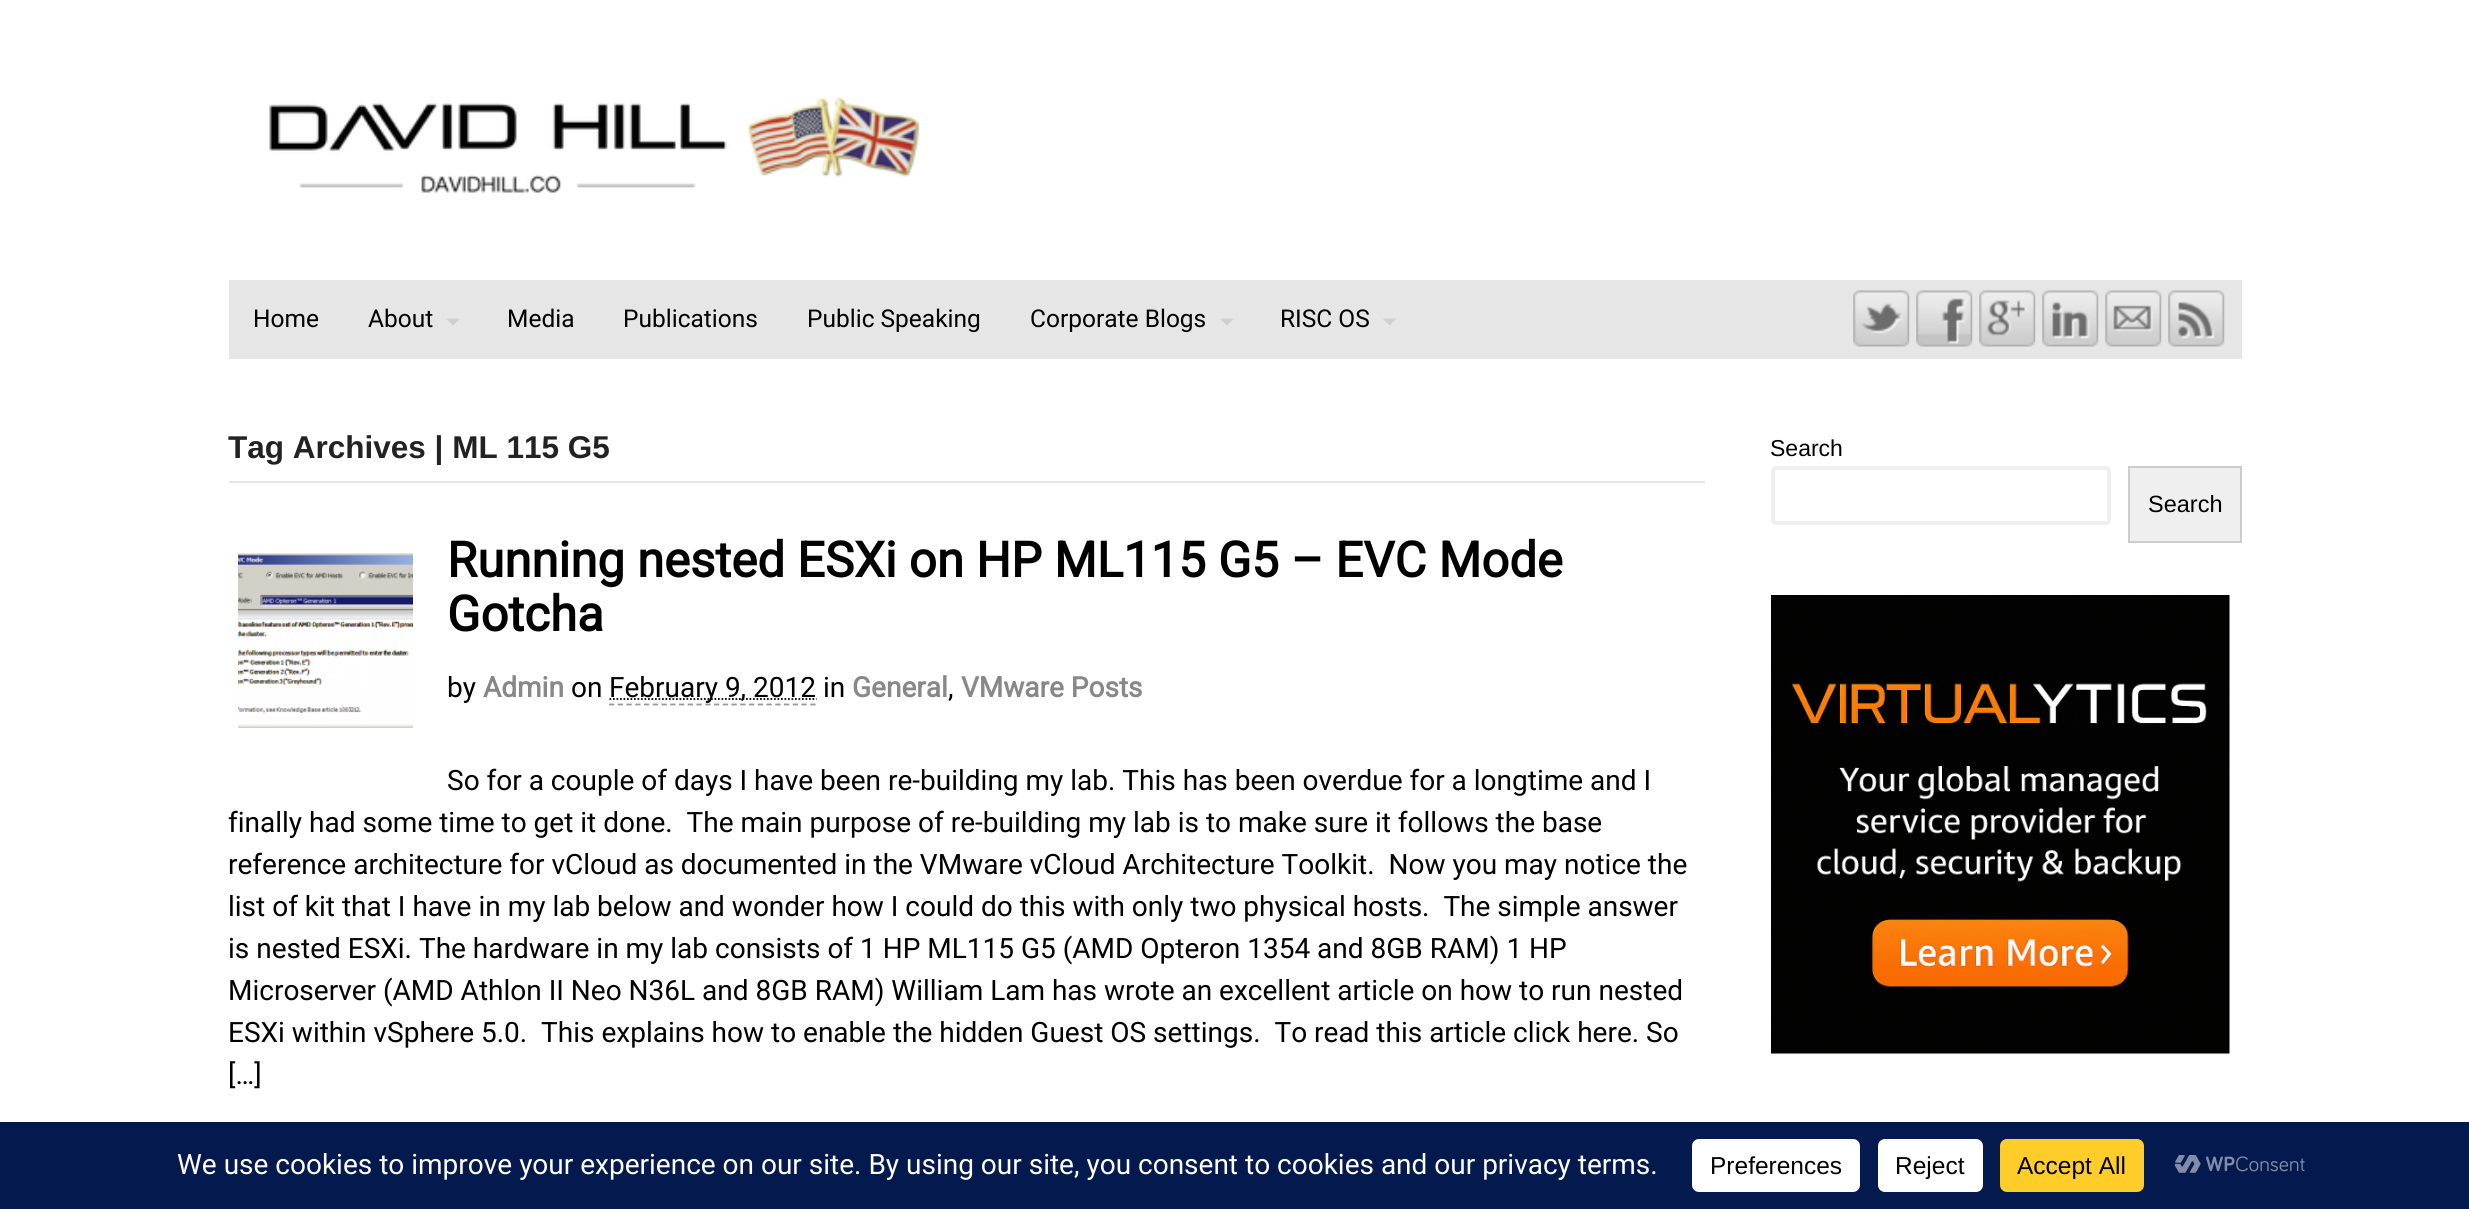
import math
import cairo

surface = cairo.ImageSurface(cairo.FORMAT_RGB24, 2469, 1209)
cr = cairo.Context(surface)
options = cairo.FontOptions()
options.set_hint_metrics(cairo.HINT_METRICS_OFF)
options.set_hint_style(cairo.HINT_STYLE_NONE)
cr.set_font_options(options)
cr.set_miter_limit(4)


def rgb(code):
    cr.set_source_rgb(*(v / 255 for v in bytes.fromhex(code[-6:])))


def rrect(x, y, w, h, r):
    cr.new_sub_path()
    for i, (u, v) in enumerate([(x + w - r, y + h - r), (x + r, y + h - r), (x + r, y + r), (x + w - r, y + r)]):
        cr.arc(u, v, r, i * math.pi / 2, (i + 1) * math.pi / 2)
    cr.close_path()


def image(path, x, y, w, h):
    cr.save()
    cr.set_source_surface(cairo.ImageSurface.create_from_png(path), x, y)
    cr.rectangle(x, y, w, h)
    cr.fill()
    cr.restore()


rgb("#ffffff")
cr.paint()
image("img/1.png", 269, 97, 651, 96)
rgb("#e6e6e6")
cr.rectangle(229, 280, 2013, 79)
cr.fill()
rgb("#cfcfcf")
cr.new_path()
cr.move_to(446, 318.5)
cr.line_to(460, 318.5)
cr.line_to(453, 325.5)
cr.close_path()
cr.fill()
cr.new_path()
cr.move_to(1220, 318.5)
cr.line_to(1234, 318.5)
cr.line_to(1227, 325.5)
cr.close_path()
cr.fill()
cr.new_path()
cr.move_to(1382.5, 318.5)
cr.line_to(1396.5, 318.5)
cr.line_to(1389.5, 325.5)
cr.close_path()
cr.fill()
image("img/2.png", 1853, 290, 57, 57)
image("img/3.png", 1916, 290, 57, 57)
image("img/4.png", 1979, 290, 57, 57)
image("img/5.png", 2042, 290, 57, 57)
image("img/6.png", 2105, 290, 57, 57)
image("img/7.png", 2168, 290, 57, 57)
rgb("#e6e6e6")
cr.rectangle(229, 481, 1476, 2)
cr.fill()
image("img/8.png", 238, 553, 175, 175)
cr.new_path()
cr.move_to(609, 704.5)
cr.line_to(815.5, 704.5)
rgb("#999999")
cr.set_line_width(1.8)
cr.set_dash([5.25, 3.5])
cr.stroke()
cr.new_path()
cr.move_to(609.5, 699)
cr.line_to(816.5, 699)
rgb("#000000")
cr.set_dash([1.75, 1.75])
cr.stroke()
rrect(1773, 468, 336, 55, 3)
rgb("#efefef")
cr.set_line_width(4)
cr.set_dash([])
cr.stroke()
cr.rectangle(2129, 467, 112, 75)
cr.fill_preserve()
rgb("#cccccc")
cr.set_line_width(2)
cr.stroke()
image("img/9.png", 1771, 595, 459, 459)
rgb("#04194e")
cr.rectangle(0, 1122, 2469, 87)
cr.fill()
rgb("#ffffff")
rrect(1692, 1139, 168, 53, 7)
cr.fill()
rrect(1878, 1139, 105, 53, 7)
cr.fill()
rgb("#ffcd2a")
rrect(2000, 1139, 144, 53, 7)
cr.fill()
image("img/10.png", 2174, 1155, 131, 18)
cr.select_font_face("Roboto")
cr.set_font_size(24.5)
rgb("#000000")
for x, y, s in [
    (253, 327, "Home"),
    (368, 327, "About"),
    (507, 327, "Media"),
    (623, 327, "Publications"),
    (807, 327, "Public Speaking"),
    (1030, 327, "Corporate Blogs"),
    (1280, 327, "RISC OS"),
]:
    cr.move_to(x, y)
    cr.show_text(s)
cr.select_font_face("Liberation Sans", cairo.FONT_SLANT_NORMAL, cairo.FONT_WEIGHT_BOLD)
cr.set_font_size(31.5)
rgb("#222222")
cr.move_to(228, 458)
cr.show_text("Tag Archives | ML 115 G5")
cr.select_font_face("Roboto", cairo.FONT_SLANT_NORMAL, cairo.FONT_WEIGHT_BOLD)
cr.set_font_size(49)
rgb("#000000")
cr.move_to(447, 577)
cr.show_text("Running nested ESXi on HP ML115 G5 – EVC Mode")
cr.move_to(447, 631)
cr.show_text("Gotcha")
cr.select_font_face("Roboto")
cr.set_font_size(28)
cr.move_to(447, 697)
cr.show_text("by")
cr.select_font_face("Roboto", cairo.FONT_SLANT_NORMAL, cairo.FONT_WEIGHT_BOLD)
rgb("#888888")
cr.move_to(483, 697)
cr.show_text("Admin")
cr.select_font_face("Roboto")
rgb("#000000")
cr.move_to(571, 697)
cr.show_text("on")
cr.move_to(609, 697)
cr.show_text("February 9, 2012 in")
cr.select_font_face("Roboto", cairo.FONT_SLANT_NORMAL, cairo.FONT_WEIGHT_BOLD)
rgb("#888888")
cr.move_to(852, 697)
cr.show_text("General")
cr.select_font_face("Roboto")
rgb("#000000")
cr.move_to(948, 697)
cr.show_text(",")
cr.select_font_face("Roboto", cairo.FONT_SLANT_NORMAL, cairo.FONT_WEIGHT_BOLD)
rgb("#888888")
cr.move_to(961, 697)
cr.show_text("VMware Posts")
cr.select_font_face("Roboto")
rgb("#000000")
for x, y, s in [
    (447, 790, "So for a couple of days I have been re-building my lab. This has been overdue for a longtime and I"),
    (228, 832, "finally had some time to get it done.  The main purpose of re-building my lab is to make sure it follows the base"),
    (228, 874, "reference architecture for vCloud as documented in the VMware vCloud Architecture Toolkit.  Now you may notice the"),
    (228, 916, "list of kit that I have in my lab below and wonder how I could do this with only two physical hosts.  The simple answer"),
    (228, 958, "is nested ESXi. The hardware in my lab consists of 1 HP ML115 G5 (AMD Opteron 1354 and 8GB RAM) 1 HP"),
    (228, 1000, "Microserver (AMD Athlon II Neo N36L and 8GB RAM) William Lam has wrote an excellent article on how to run nested"),
    (228, 1042, "ESXi within vSphere 5.0.  This explains how to enable the hidden Guest OS settings.  To read this article click here. So"),
    (228, 1084, "[…]"),
]:
    cr.move_to(x, y)
    cr.show_text(s)
cr.select_font_face("Liberation Sans")
cr.set_font_size(23)
cr.move_to(1770, 456)
cr.show_text("Search")
cr.set_font_size(23.5)
cr.move_to(2148, 512)
cr.show_text("Search")
cr.select_font_face("Roboto")
cr.set_font_size(28)
rgb("#ffffff")
cr.move_to(177, 1174)
cr.show_text("We use cookies to improve your experience on our site. By using our site, you consent to cookies and our privacy terms.")
cr.select_font_face("Liberation Sans")
cr.set_font_size(24.5)
rgb("#000000")
for x, y, s in [
    (1710, 1174, "Preferences"),
    (1895, 1174, "Reject"),
    (2017, 1174, "Accept All"),
]:
    cr.move_to(x, y)
    cr.show_text(s)
surface.write_to_png("page.png")
